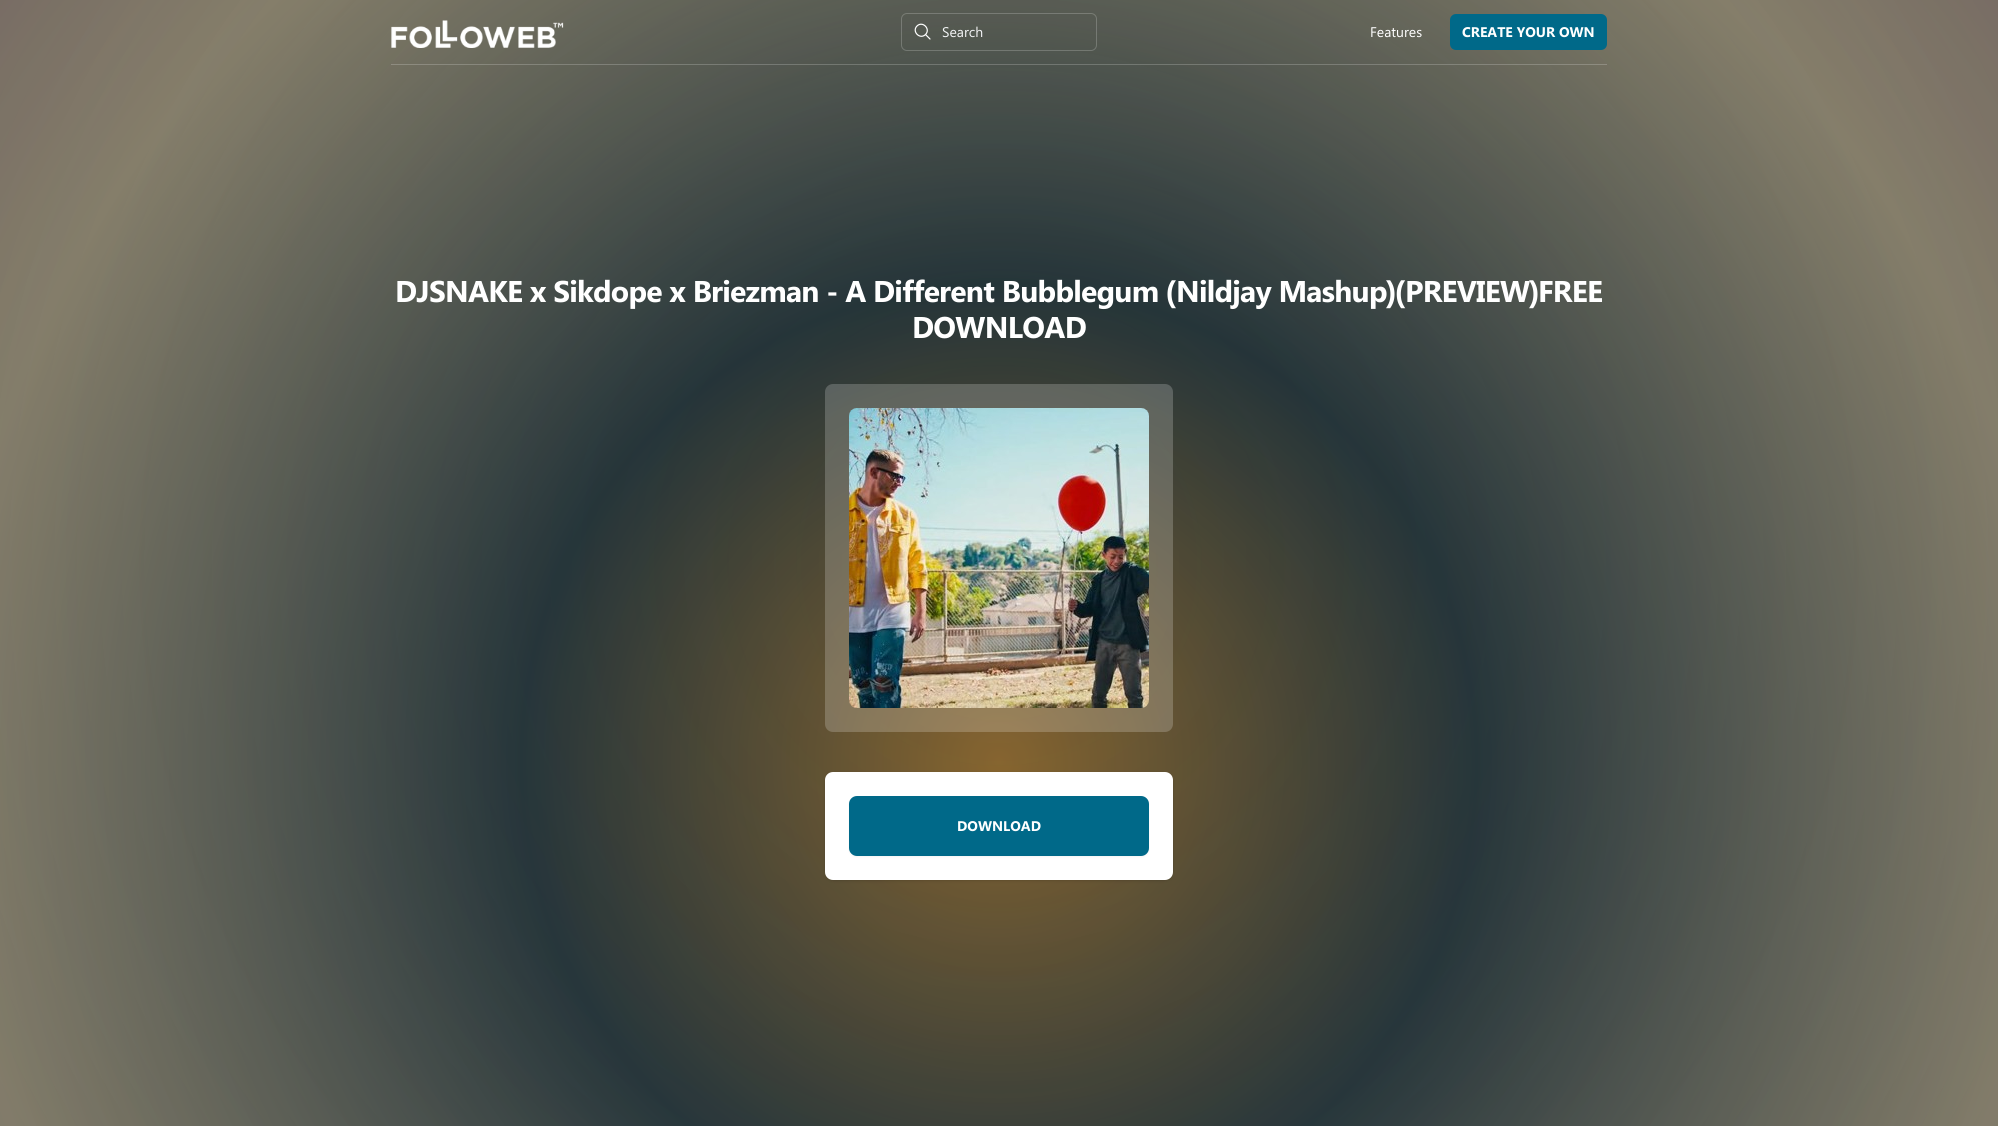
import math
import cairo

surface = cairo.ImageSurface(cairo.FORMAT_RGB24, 1998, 1126)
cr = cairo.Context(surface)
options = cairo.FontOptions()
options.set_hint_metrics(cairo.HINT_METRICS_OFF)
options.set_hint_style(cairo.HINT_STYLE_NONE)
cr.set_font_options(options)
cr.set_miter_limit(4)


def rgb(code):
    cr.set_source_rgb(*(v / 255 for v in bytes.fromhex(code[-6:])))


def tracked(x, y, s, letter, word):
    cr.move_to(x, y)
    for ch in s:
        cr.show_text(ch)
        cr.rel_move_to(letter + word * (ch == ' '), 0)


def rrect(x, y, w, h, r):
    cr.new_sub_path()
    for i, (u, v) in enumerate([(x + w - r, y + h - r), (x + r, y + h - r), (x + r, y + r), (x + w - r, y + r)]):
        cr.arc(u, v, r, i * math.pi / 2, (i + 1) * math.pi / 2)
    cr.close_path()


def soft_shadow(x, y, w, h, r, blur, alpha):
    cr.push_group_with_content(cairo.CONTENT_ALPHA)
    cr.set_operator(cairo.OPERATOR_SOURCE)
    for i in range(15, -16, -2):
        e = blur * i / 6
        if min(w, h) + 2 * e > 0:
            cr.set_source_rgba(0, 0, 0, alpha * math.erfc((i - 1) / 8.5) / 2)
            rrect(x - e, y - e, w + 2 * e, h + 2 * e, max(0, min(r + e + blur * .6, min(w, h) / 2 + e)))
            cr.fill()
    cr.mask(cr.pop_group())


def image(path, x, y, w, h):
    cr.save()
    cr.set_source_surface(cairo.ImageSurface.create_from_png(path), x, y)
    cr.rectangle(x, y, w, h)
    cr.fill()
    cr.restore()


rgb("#ffffff")
cr.paint()
gradient = cairo.RadialGradient(999, 762, 0, 999, 762, 9547)
gradient.add_color_stop_rgba(0, 0.565, 0.408, 0.161, 1)
gradient.add_color_stop_rgba(0.05, 0.122, 0.188, 0.2, 1)
gradient.add_color_stop_rgba(0.11, 0.608, 0.561, 0.439, 1)
gradient.add_color_stop_rgba(0.16, 0.482, 0.373, 0.369, 1)
gradient.add_color_stop_rgba(0.21, 0.769, 0.714, 0.612, 1)
gradient.add_color_stop_rgba(0.26, 0.612, 0.584, 0.588, 1)
gradient.add_color_stop_rgba(0.32, 0.776, 0.886, 0.886, 1)
gradient.add_color_stop_rgba(0.37, 0.471, 0.557, 0.616, 1)
gradient.add_color_stop_rgba(0.42, 0.922, 0.847, 0.729, 1)
gradient.add_color_stop_rgba(0.47, 0.71, 0.035, 0.024, 1)
gradient.add_color_stop_rgba(0.53, 0.769, 0.749, 0.231, 1)
gradient.add_color_stop_rgba(0.58, 0.2, 0.412, 0.463, 1)
gradient.add_color_stop_rgba(0.63, 0.584, 0.761, 0.808, 1)
gradient.add_color_stop_rgba(0.68, 0.663, 0.839, 0.863, 1)
gradient.add_color_stop_rgba(0.74, 0.812, 0.792, 0.737, 1)
gradient.add_color_stop_rgba(0.79, 0.71, 0.718, 0.733, 1)
gradient.add_color_stop_rgba(0.84, 0.329, 0.549, 0.612, 1)
gradient.add_color_stop_rgba(0.89, 0.329, 0.549, 0.125, 1)
gradient.add_color_stop_rgba(0.95, 0.733, 0.784, 0.816, 1)
gradient.add_color_stop_rgba(1, 0.863, 0.957, 0.957, 1)
gradient.add_color_stop_rgba(1, 0.122, 0.161, 0.216, 1)
cr.set_source(gradient)
cr.rectangle(0, 0, 1998, 1126)
cr.fill()
gradient = cairo.RadialGradient(999, 563, 0, 999, 563, 1147)
gradient.add_color_stop_rgba(0, 0.275, 0.306, 0.353, 0.1)
gradient.add_color_stop_rgba(1, 0.275, 0.306, 0.353, 0.3)
cr.set_source(gradient)
cr.rectangle(0, 0, 1998, 1126)
cr.fill()
cr.set_source_rgba(1, 1, 1, 0.2)
cr.rectangle(391, 64, 1216, 1)
cr.fill()
image("img/1.png", 391, 20, 173, 28)
rrect(901.5, 13.5, 195, 37, 5.5)
cr.set_line_width(1)
cr.stroke()
cr.new_path()
cr.move_to(930, 39)
cr.line_to(925.5, 34.5)
cr.move_to(925.5, 34.5)
cr.curve_to(931, 29, 922.5, 20.5, 917, 26)
cr.curve_to(911.5, 31.5, 920, 40, 925.5, 34.5)
cr.close_path()
rgb("#ffffff")
cr.set_line_width(1.2)
cr.set_line_cap(cairo.LINE_CAP_ROUND)
cr.set_line_join(cairo.LINE_JOIN_ROUND)
cr.stroke()
rgb("#006989")
rrect(1450, 14, 157, 36, 6)
cr.fill()
cr.set_source_rgba(1, 1, 1, 0.2)
rrect(825, 384, 348, 348, 8)
cr.fill()
image("img/2.png", 849, 408, 300, 300)
rgb("#000000")
soft_shadow(826, 774, 346, 106, 7, 1, 0.1)
soft_shadow(825, 773, 348, 108, 8, 1.5, 0.1)
rgb("#ffffff")
rrect(825, 772, 348, 108, 8)
cr.fill()
rgb("#000000")
soft_shadow(849, 797, 300, 60, 8, 1, 0.05)
rgb("#006989")
rrect(849, 796, 300, 60, 8)
cr.fill()
cr.select_font_face("Segoe UI")
cr.set_font_size(14)
rgb("#f3f4f6")
cr.move_to(942, 37)
cr.show_text("Search")
rgb("#ffffff")
cr.move_to(1370, 37)
cr.show_text("Features")
cr.select_font_face("Segoe UI", cairo.FONT_SLANT_NORMAL, cairo.FONT_WEIGHT_BOLD)
cr.move_to(1462, 37)
cr.show_text("CREATE YOUR OWN")
cr.set_font_size(30)
tracked(395, 302, "DJSNAKE x Sikdope x Briezman - A Different Bubblegum", -0.75, 0)
cr.select_font_face("Liberation Sans", cairo.FONT_SLANT_NORMAL, cairo.FONT_WEIGHT_BOLD)
tracked(1166, 302, "(", -0.75, 0)
cr.select_font_face("Segoe UI", cairo.FONT_SLANT_NORMAL, cairo.FONT_WEIGHT_BOLD)
tracked(1176, 302, "Nildjay Mashup", -0.75, 0)
cr.select_font_face("Liberation Sans", cairo.FONT_SLANT_NORMAL, cairo.FONT_WEIGHT_BOLD)
tracked(1386, 302, ")(", -0.75, 0)
cr.select_font_face("Segoe UI", cairo.FONT_SLANT_NORMAL, cairo.FONT_WEIGHT_BOLD)
tracked(1405, 302, "PREVIEW", -0.75, 0)
cr.select_font_face("Liberation Sans", cairo.FONT_SLANT_NORMAL, cairo.FONT_WEIGHT_BOLD)
tracked(1529, 302, ")", -0.75, 0)
cr.select_font_face("Segoe UI", cairo.FONT_SLANT_NORMAL, cairo.FONT_WEIGHT_BOLD)
tracked(1538, 302, "FREE", -0.75, 0)
tracked(912, 338, "DOWNLOAD", -0.75, 0)
cr.set_font_size(14)
cr.move_to(957, 831)
cr.show_text("DOWNLOAD")
surface.write_to_png("page.png")
